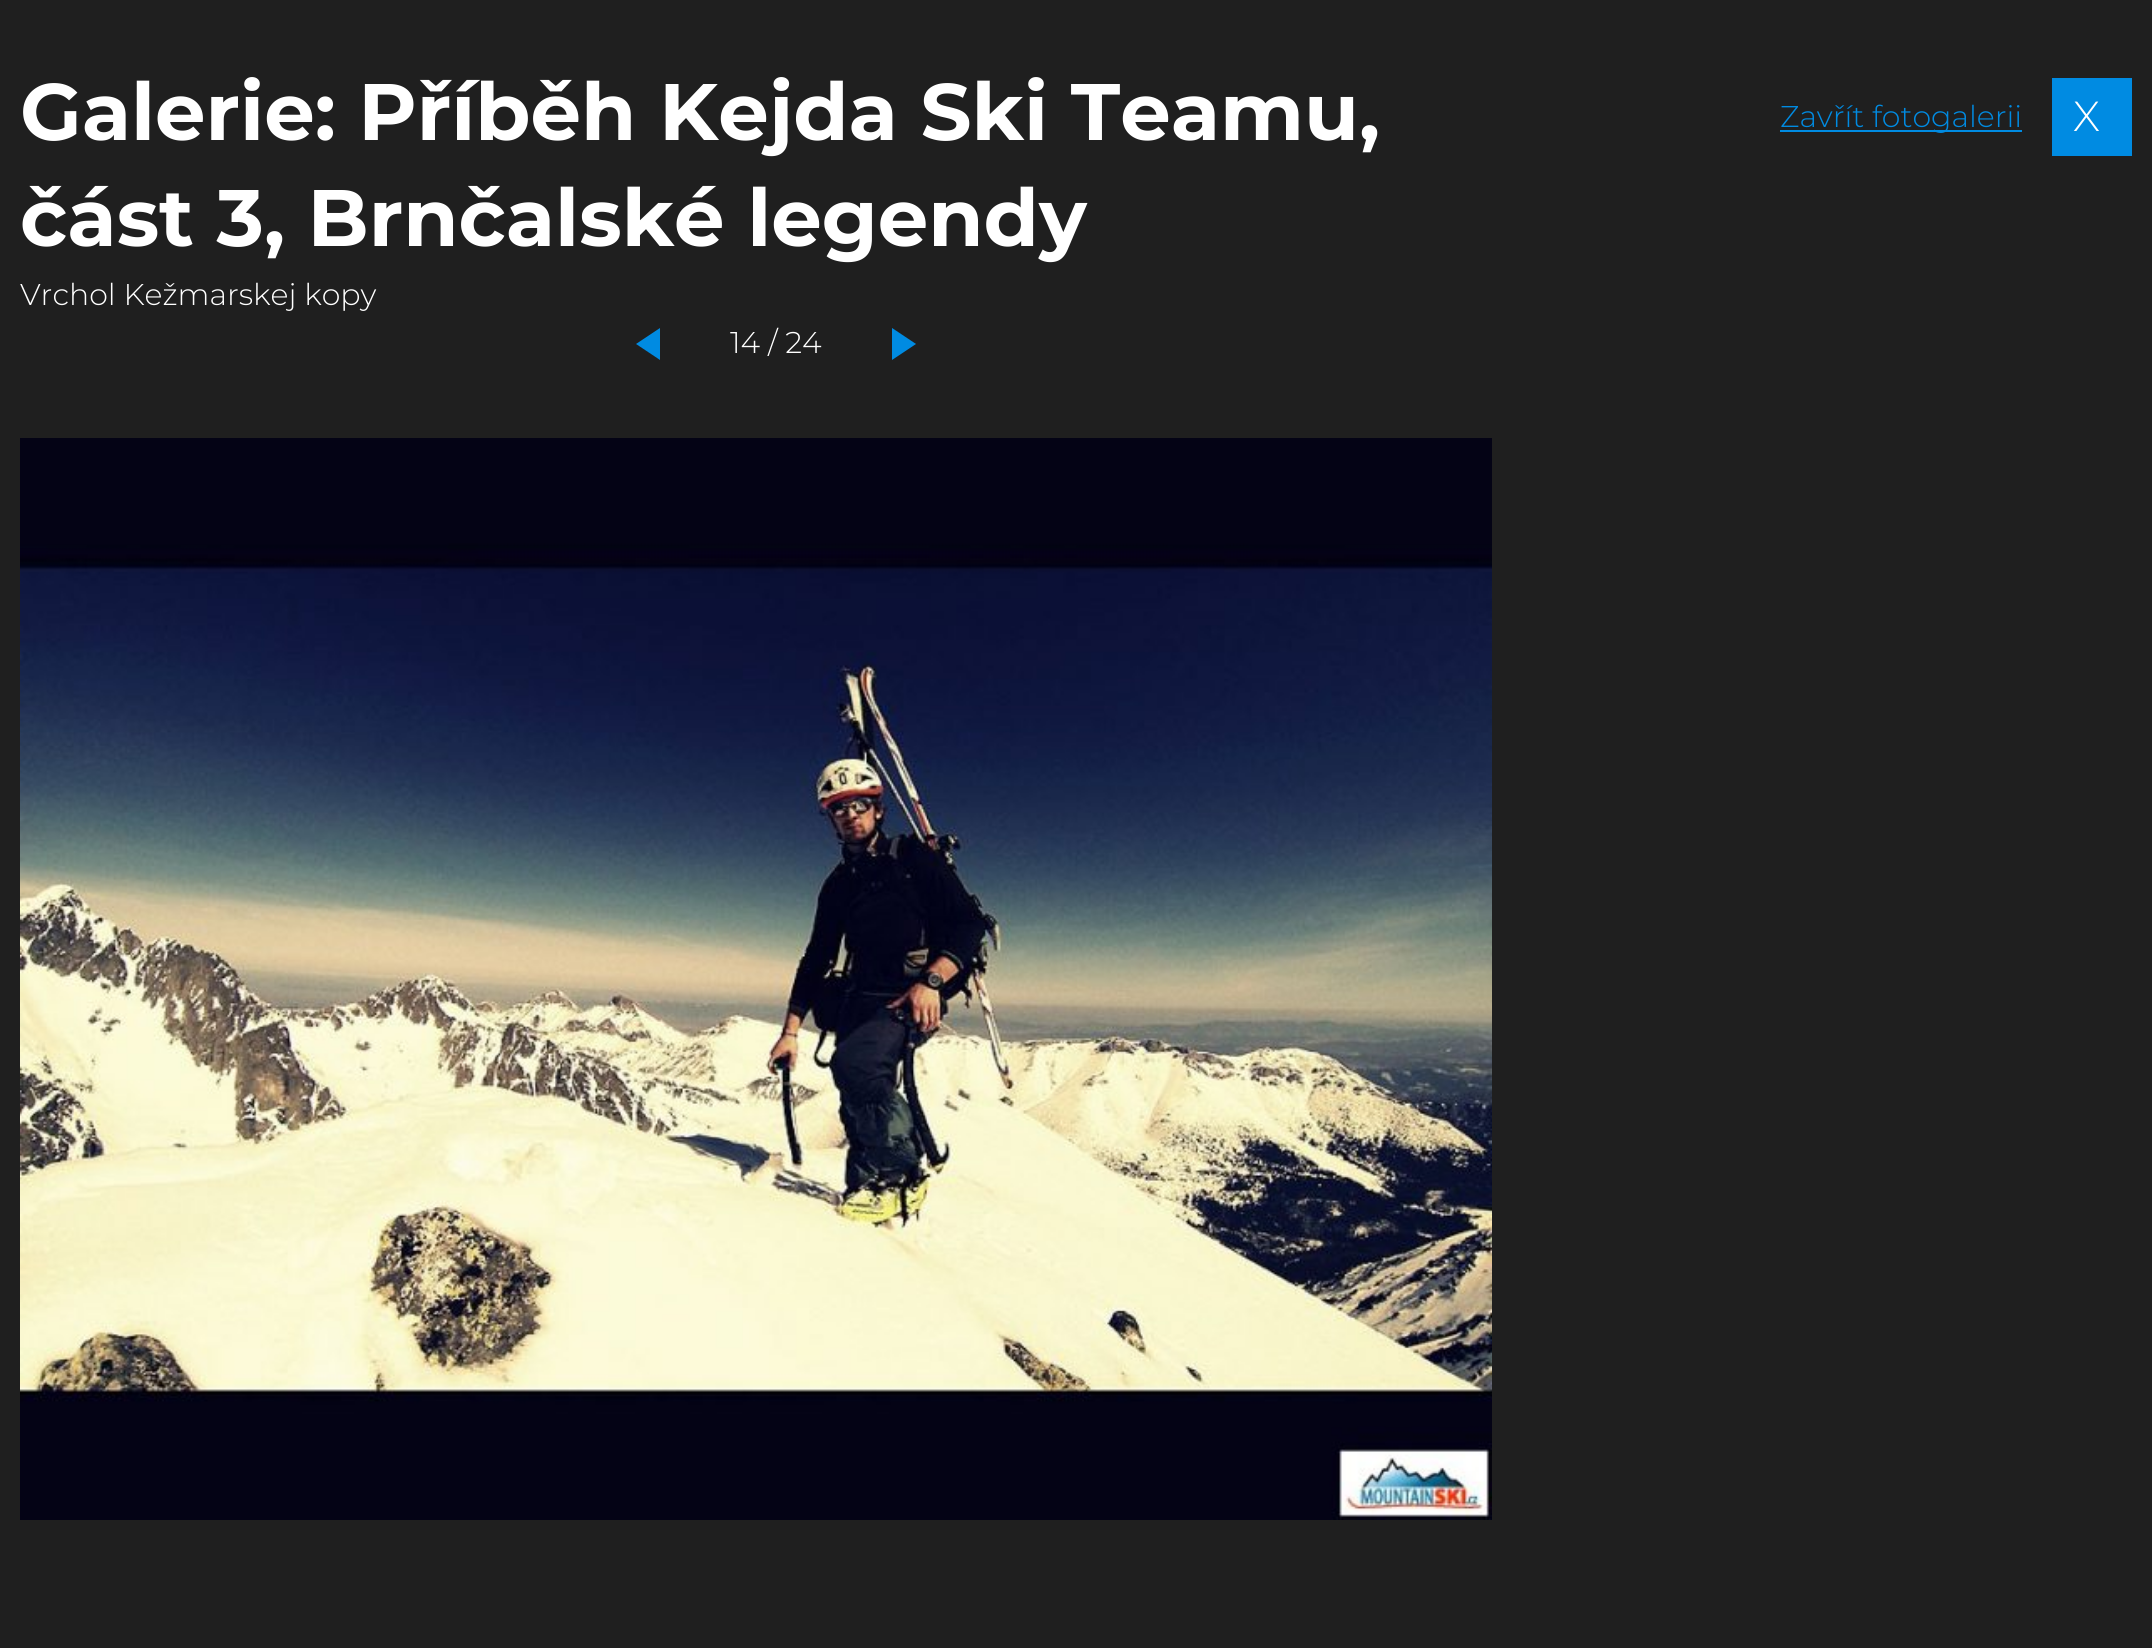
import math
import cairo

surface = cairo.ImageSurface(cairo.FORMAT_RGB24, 2152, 1648)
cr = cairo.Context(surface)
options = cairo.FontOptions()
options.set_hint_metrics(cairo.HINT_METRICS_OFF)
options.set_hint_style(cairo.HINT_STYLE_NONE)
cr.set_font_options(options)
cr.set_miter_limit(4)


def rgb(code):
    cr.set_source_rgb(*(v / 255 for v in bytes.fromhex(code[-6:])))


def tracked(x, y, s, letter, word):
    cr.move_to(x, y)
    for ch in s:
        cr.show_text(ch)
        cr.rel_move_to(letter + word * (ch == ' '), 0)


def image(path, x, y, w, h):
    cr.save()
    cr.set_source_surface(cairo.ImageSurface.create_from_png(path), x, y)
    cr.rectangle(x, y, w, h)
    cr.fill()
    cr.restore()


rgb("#1f1f1f")
cr.paint()
rgb("#008be2")
cr.new_path()
cr.move_to(660, 328)
cr.line_to(660, 360)
cr.line_to(636, 344)
cr.close_path()
cr.fill()
cr.new_path()
cr.move_to(892, 360)
cr.line_to(892, 328)
cr.line_to(916, 344)
cr.close_path()
cr.fill()
cr.rectangle(1780, 130, 242, 2)
cr.fill()
cr.rectangle(2052, 78, 80, 78)
cr.fill()
image("img/1.png", 20, 438, 1472, 1082)
cr.select_font_face("Montserrat", cairo.FONT_SLANT_NORMAL, cairo.FONT_WEIGHT_BOLD)
cr.set_font_size(80)
rgb("#ffffff")
cr.move_to(20, 140)
cr.show_text("Galerie: Příběh Kejda Ski Teamu,")
cr.move_to(20, 246)
cr.show_text("část 3, Brnčalské legendy")
cr.select_font_face("Montserrat Light")
cr.set_font_size(30)
cr.move_to(20, 305)
cr.show_text("Vrchol Kežmarskej kopy")
cr.move_to(730, 353)
cr.show_text("14 / 24")
rgb("#008be2")
cr.move_to(1780, 127)
cr.show_text("Zavřít fotogalerii")
cr.set_font_size(42)
rgb("#ffffff")
tracked(2073, 131, "X", 12, 0)
surface.write_to_png("page.png")
